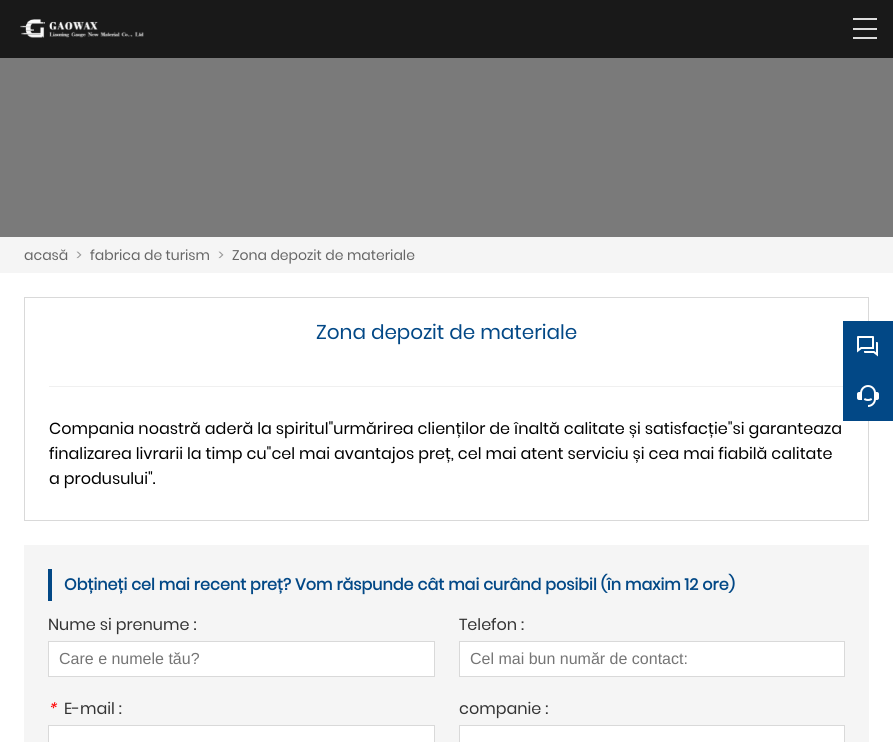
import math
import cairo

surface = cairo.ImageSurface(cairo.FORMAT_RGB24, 893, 742)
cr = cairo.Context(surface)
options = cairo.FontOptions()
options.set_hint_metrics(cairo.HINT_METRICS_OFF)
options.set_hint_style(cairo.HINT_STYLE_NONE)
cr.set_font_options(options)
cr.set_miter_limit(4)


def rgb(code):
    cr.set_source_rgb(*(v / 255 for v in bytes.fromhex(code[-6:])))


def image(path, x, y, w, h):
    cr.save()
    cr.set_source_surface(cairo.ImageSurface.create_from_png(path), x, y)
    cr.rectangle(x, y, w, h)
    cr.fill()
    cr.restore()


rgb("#ffffff")
cr.paint()
rgb("#191919")
cr.rectangle(0, 0, 893, 58)
cr.fill()
image("img/1.png", 20, 19, 124, 19)
for x, y, w, h, color in [
    (853, 18, 24, 2, "#dddddd"),
    (853, 28, 24, 2, "#dddddd"),
    (853, 37, 24, 2, "#dddddd"),
    (0, 58, 893, 179, "#7a7a7a"),
    (0, 237, 893, 36, "#f5f5f5"),
]:
    rgb(color)
    cr.rectangle(x, y, w, h)
    cr.fill()
cr.rectangle(24.5, 297.5, 844, 223)
rgb("#d9d9d9")
cr.set_line_width(1)
cr.stroke()
for x, y, w, h, color in [
    (49, 386, 795, 1, "#f0f0f0"),
    (24, 545, 845, 197, "#f5f5f5"),
    (48, 569, 4, 32, "#024886"),
]:
    rgb(color)
    cr.rectangle(x, y, w, h)
    cr.fill()
rgb("#ffffff")
cr.rectangle(48.5, 641.5, 386, 35)
cr.fill_preserve()
rgb("#d9d9d9")
cr.stroke()
rgb("#ffffff")
cr.rectangle(459.5, 641.5, 385, 35)
cr.fill_preserve()
rgb("#d9d9d9")
cr.stroke()
rgb("#ffffff")
cr.rectangle(48.5, 725.5, 386, 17)
cr.fill_preserve()
rgb("#d9d9d9")
cr.stroke()
rgb("#ffffff")
cr.rectangle(459.5, 725.5, 385, 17)
cr.fill_preserve()
rgb("#d9d9d9")
cr.stroke()
rgb("#024886")
cr.rectangle(843, 321, 50, 100)
cr.fill()
image("img/2.png", 857, 336, 21, 21)
image("img/3.png", 857, 385, 22, 22)
cr.select_font_face("Poppins")
cr.set_font_size(14)
rgb("#666666")
cr.move_to(24, 260)
cr.show_text("acasă")
rgb("#999999")
cr.move_to(76, 260)
cr.show_text(">")
rgb("#666666")
cr.move_to(90, 260)
cr.show_text("fabrica de turism")
rgb("#999999")
cr.move_to(218, 260)
cr.show_text(">")
rgb("#666666")
cr.move_to(232, 260)
cr.show_text("Zona depozit de materiale")
cr.set_font_size(20)
rgb("#024886")
cr.move_to(316, 339)
cr.show_text("Zona depozit de materiale")
cr.set_font_size(16)
rgb("#000000")
for x, y, s in [
    (49, 434, "Compania noastră aderă la spiritul\"urmărirea clienților de înaltă calitate și satisfacție\"si garanteaza"),
    (49, 459, "finalizarea livrarii la timp cu\"cel mai avantajos preț, cel mai atent serviciu și cea mai fiabilă calitate"),
    (49, 484, "a produsului\"."),
]:
    cr.move_to(x, y)
    cr.show_text(s)
cr.select_font_face("Poppins", cairo.FONT_SLANT_NORMAL, cairo.FONT_WEIGHT_BOLD)
rgb("#024886")
cr.move_to(64, 590)
cr.show_text("Obțineți cel mai recent preț? Vom răspunde cât mai curând posibil (în maxim 12 ore)")
cr.select_font_face("Poppins")
rgb("#333333")
cr.move_to(48, 630)
cr.show_text("Nume si prenume :")
cr.select_font_face("Liberation Sans")
rgb("#757575")
cr.move_to(59, 664)
cr.show_text("Care e numele tău?")
cr.select_font_face("Poppins")
rgb("#333333")
cr.move_to(459, 630)
cr.show_text("Telefon :")
cr.select_font_face("Liberation Sans")
rgb("#757575")
cr.move_to(470, 664)
cr.show_text("Cel mai bun număr de contact:")
cr.select_font_face("Poppins", cairo.FONT_SLANT_ITALIC)
rgb("#ff0000")
cr.move_to(48, 714)
cr.show_text("*")
cr.select_font_face("Poppins")
rgb("#333333")
cr.move_to(64, 714)
cr.show_text("E-mail :")
cr.move_to(459, 714)
cr.show_text("companie :")
surface.write_to_png("page.png")
